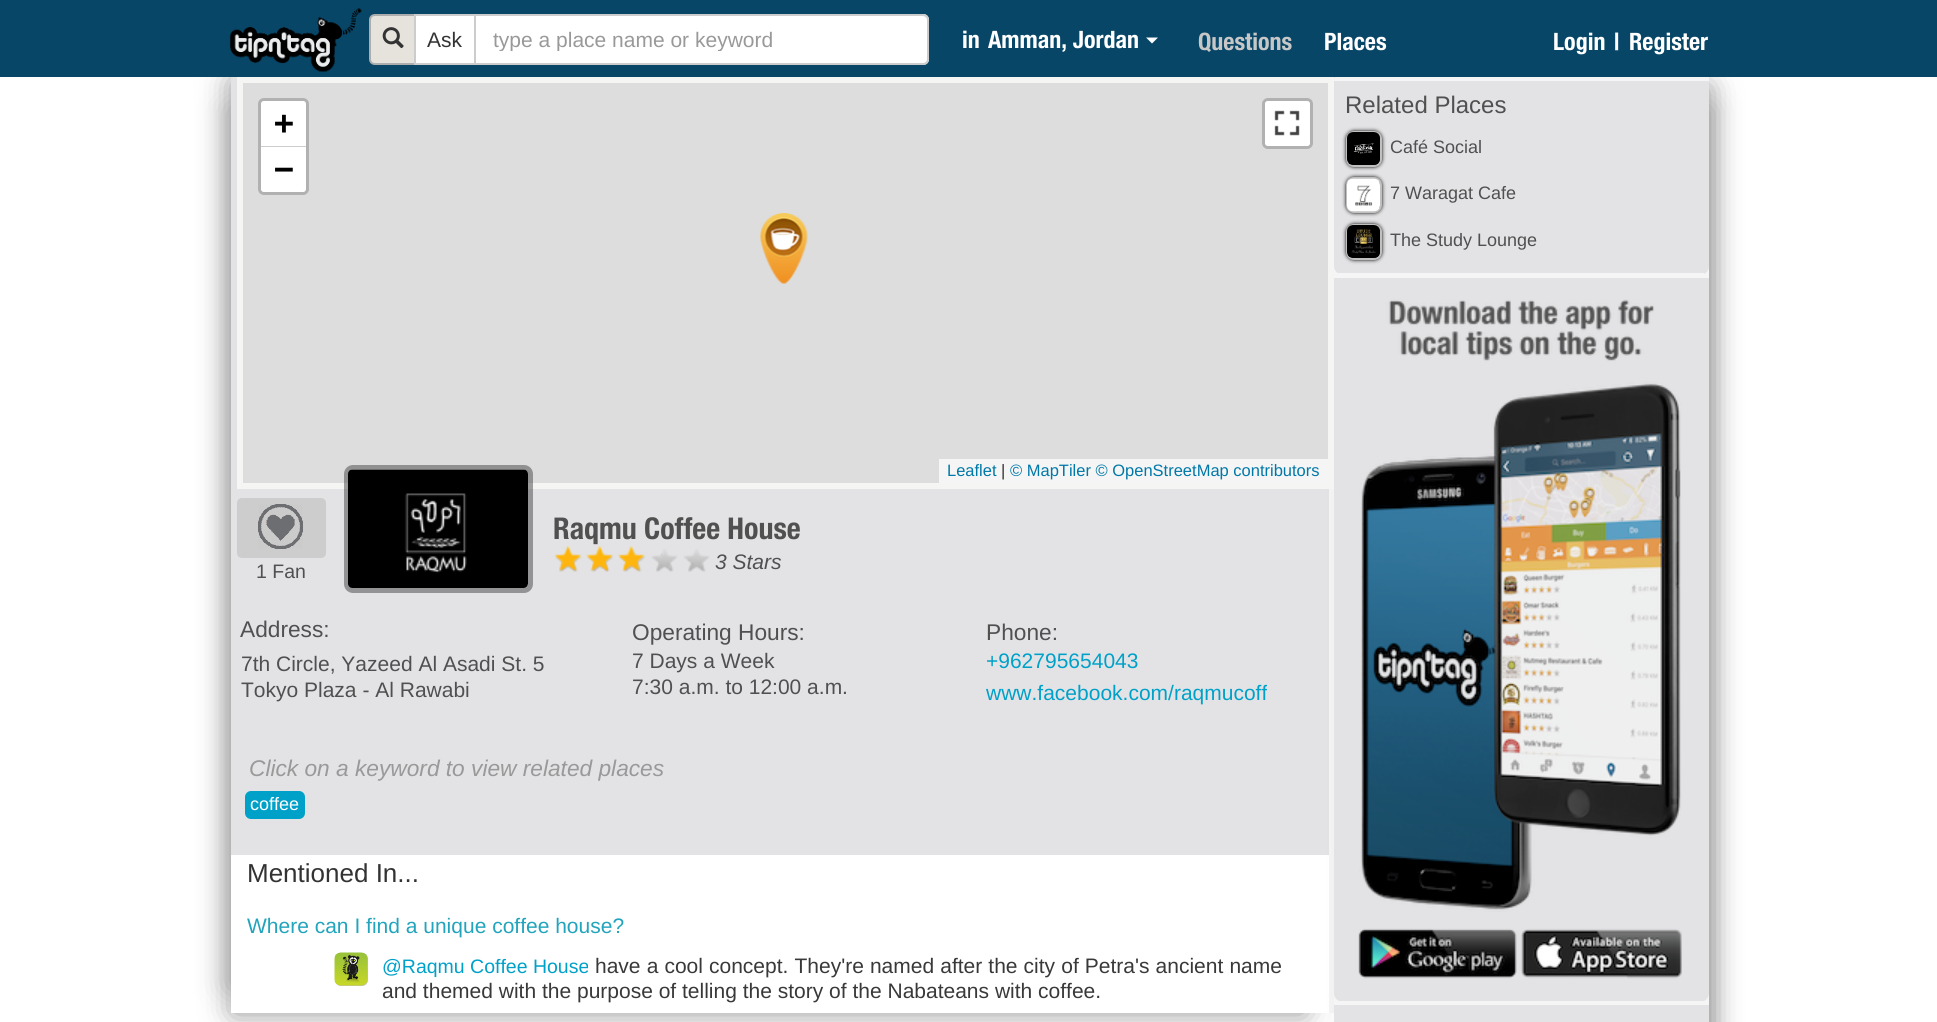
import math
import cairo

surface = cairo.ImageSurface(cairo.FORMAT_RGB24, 1937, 1022)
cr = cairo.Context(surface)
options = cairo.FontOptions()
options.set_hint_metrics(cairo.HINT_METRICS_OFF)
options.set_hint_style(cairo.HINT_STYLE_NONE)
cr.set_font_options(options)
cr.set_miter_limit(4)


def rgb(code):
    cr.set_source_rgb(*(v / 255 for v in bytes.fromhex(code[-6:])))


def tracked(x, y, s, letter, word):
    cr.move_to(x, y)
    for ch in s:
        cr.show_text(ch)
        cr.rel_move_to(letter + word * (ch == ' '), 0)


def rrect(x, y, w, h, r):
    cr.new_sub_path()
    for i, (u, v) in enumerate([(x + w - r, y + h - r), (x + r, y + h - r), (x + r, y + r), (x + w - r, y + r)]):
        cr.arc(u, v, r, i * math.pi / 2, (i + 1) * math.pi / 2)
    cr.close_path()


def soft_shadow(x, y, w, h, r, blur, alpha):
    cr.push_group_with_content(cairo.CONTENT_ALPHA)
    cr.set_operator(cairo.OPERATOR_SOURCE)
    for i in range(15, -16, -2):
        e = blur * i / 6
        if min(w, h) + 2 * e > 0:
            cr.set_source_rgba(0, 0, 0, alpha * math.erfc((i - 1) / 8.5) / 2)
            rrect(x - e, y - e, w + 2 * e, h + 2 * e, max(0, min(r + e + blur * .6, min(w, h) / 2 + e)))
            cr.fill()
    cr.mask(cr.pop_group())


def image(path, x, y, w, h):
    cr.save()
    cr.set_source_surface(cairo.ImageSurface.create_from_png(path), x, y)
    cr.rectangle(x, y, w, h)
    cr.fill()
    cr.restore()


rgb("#ffffff")
cr.paint()
rgb("#999999")
soft_shadow(233, 108, 1072, 906, 0, 15, 1)
soft_shadow(231, 81, 1073, 906, 0, 15, 1)
for x, y, w, h, color in [
    (231, 855, 1098, 158, "#ffffff"),
    (1329, 489, 5, 524, "#f5f5f5"),
    (231, 77, 1098, 778, "#e3e3e6"),
]:
    rgb(color)
    cr.rectangle(x, y, w, h)
    cr.fill()
rgb("#999999")
soft_shadow(1364, 108, 345, 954, 0, 14, 1)
soft_shadow(1364, 87, 345, 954, 0, 15, 1)
rgb("#084667")
cr.rectangle(0, 0, 1937, 77)
cr.fill()
image("img/1.png", 229, 8, 133, 64)
rgb("#e5e3db")
cr.new_path()
cr.move_to(375, 15)
cr.line_to(416, 15)
cr.line_to(416, 64)
cr.line_to(375, 64)
cr.curve_to(372, 64, 370, 62, 370, 59)
cr.line_to(370, 20)
cr.curve_to(370, 17, 372, 15, 375, 15)
cr.close_path()
cr.fill_preserve()
rgb("#adadad")
cr.stroke()
image("img/2.png", 382, 27, 22, 22)
rgb("#ffffff")
cr.rectangle(415, 15, 60, 49)
cr.fill_preserve()
rgb("#cccccc")
cr.stroke()
rgb("#ffffff")
cr.new_path()
cr.move_to(474, 14)
cr.line_to(923, 14)
cr.curve_to(926.5, 14, 929, 16.5, 929, 20)
cr.line_to(929, 59)
cr.curve_to(929, 62.5, 926.5, 65, 923, 65)
cr.line_to(474, 65)
cr.close_path()
cr.fill()
rgb("#ececec")
cr.new_path()
cr.move_to(476, 16)
cr.line_to(922, 16)
cr.curve_to(925, 16, 927, 19, 927, 21)
cr.curve_to(927, 18, 925, 15, 922, 15)
cr.line_to(476, 15)
cr.close_path()
cr.fill()
cr.new_path()
cr.move_to(475, 15)
cr.line_to(923, 15)
cr.curve_to(926, 15, 928, 17, 928, 20)
cr.line_to(928, 59)
cr.curve_to(928, 62, 926, 64, 923, 64)
cr.line_to(475, 64)
cr.close_path()
rgb("#cccccc")
cr.stroke()
rgb("#ffffff")
cr.new_path()
cr.move_to(1146, 37.5)
cr.line_to(1158, 37.5)
cr.line_to(1152, 43.5)
cr.close_path()
cr.fill()
rgb("#dddddd")
cr.rectangle(240, 80, 1091, 406)
cr.fill_preserve()
rgb("#f5f5f4")
cr.set_line_width(6)
cr.stroke()
rrect(259.5, 99.5, 48, 94, 4.5)
rgb("#b1b1b1")
cr.set_line_width(3)
cr.stroke()
rgb("#ffffff")
cr.new_path()
cr.move_to(264, 101)
cr.line_to(303, 101)
cr.curve_to(304.5, 101, 306, 102.5, 306, 104)
cr.line_to(306, 147)
cr.line_to(261, 147)
cr.line_to(261, 104)
cr.curve_to(261, 102.5, 262.5, 101, 264, 101)
cr.close_path()
cr.fill()
rgb("#cccccc")
cr.rectangle(261, 146, 45, 1)
cr.fill()
rgb("#ffffff")
cr.new_path()
cr.move_to(261, 147)
cr.line_to(306, 147)
cr.line_to(306, 189)
cr.curve_to(306, 190.5, 304.5, 192, 303, 192)
cr.line_to(264, 192)
cr.curve_to(262.5, 192, 261, 190.5, 261, 189)
cr.close_path()
cr.fill()
rrect(1263.5, 99.5, 48, 48, 4.5)
rgb("#b1b1b1")
cr.stroke()
rgb("#ffffff")
rrect(1265, 101, 45, 45, 3)
cr.fill()
image("img/3.png", 1274, 110, 26, 26)
rgb("#f5f5f5")
cr.rectangle(939, 459, 389, 24)
cr.fill()
image("img/4.png", 760, 213, 48, 71)
rrect(346.5, 467.5, 184, 123, 6.5)
cr.set_source_rgba(0.267, 0.267, 0.267, 0.5)
cr.set_line_width(5)
cr.stroke()
image("img/5.png", 348, 469, 180, 119)
image("img/6.png", 555, 548, 155, 24)
image("img/7.png", 555, 546, 90, 26)
rgb("#cdcdcd")
rrect(237, 498, 89, 60, 5)
cr.fill()
image("img/8.png", 258, 504, 45, 45)
rgb("#00a1c9")
rrect(245, 791, 60, 28, 6)
cr.fill()
rgb("#c0c0c0")
rrect(335, 953, 33, 33, 6)
cr.fill()
image("img/9.png", 334, 952, 34, 34)
rgb("#f5f5f5")
cr.rectangle(1334, 77, 375, 928)
cr.fill()
rgb("#e3e3e6")
cr.rectangle(1334, 77, 1, 1)
cr.fill()
cr.new_path()
cr.move_to(1334, 78)
cr.line_to(1709, 78)
cr.line_to(1709, 266)
cr.curve_to(1709, 271, 1705, 275, 1700, 275)
cr.line_to(1343, 275)
cr.curve_to(1338, 275, 1334, 271, 1334, 266)
cr.close_path()
cr.fill()
rgb("#f5f5f5")
cr.rectangle(1338, 273, 366, 2)
cr.fill()
cr.rectangle(1334, 78, 375, 3)
cr.fill()
rgb("#000000")
soft_shadow(1346, 131, 36, 36, 8, 2, 1)
rrect(1347, 132, 34, 34, 7)
rgb("#c0c0c0")
cr.set_line_width(2)
cr.stroke()
image("img/10.png", 1347, 132, 33, 33)
rgb("#000000")
soft_shadow(1346, 177, 36, 36, 8, 2, 1)
rrect(1347, 178, 34, 34, 7)
rgb("#c0c0c0")
cr.stroke()
image("img/11.png", 1347, 178, 33, 34)
rgb("#000000")
soft_shadow(1346, 224, 36, 36, 8, 2, 1)
rrect(1347, 225, 34, 34, 7)
rgb("#c0c0c0")
cr.stroke()
image("img/12.png", 1347, 225, 33, 33)
rgb("#e3e3e6")
cr.new_path()
cr.move_to(1334, 278)
cr.line_to(1709, 278)
cr.line_to(1709, 993)
cr.curve_to(1709, 998, 1705, 1002, 1700, 1002)
cr.line_to(1343, 1002)
cr.curve_to(1338, 1002, 1334, 998, 1334, 993)
cr.close_path()
cr.fill()
rgb("#f5f5f5")
cr.rectangle(1338, 1001, 366, 1)
cr.fill()
image("img/13.png", 1358, 299, 324, 680)
rgb("#e3e3e6")
cr.rectangle(1334, 1005, 375, 17)
cr.fill()
cr.select_font_face("Liberation Sans")
cr.set_font_size(21)
rgb("#333333")
cr.move_to(427, 47)
cr.show_text("Ask")
cr.save()
cr.rectangle(488, 27, 427, 24)
cr.clip()
rgb("#999999")
cr.move_to(493, 47)
cr.show_text("type a place name or keyword")
cr.restore()
cr.select_font_face("Helvetica Neue", cairo.FONT_SLANT_NORMAL, cairo.FONT_WEIGHT_BOLD)
cr.set_font_size(24)
rgb("#ffffff")
cr.move_to(962, 48)
cr.show_text("in")
cr.move_to(988, 48)
cr.show_text("Amman, Jordan")
rgb("#c7c7c7")
cr.move_to(1198, 50)
cr.show_text("Questions")
rgb("#ffffff")
for x, y, s in [
    (1324, 50, "Places"),
    (1553, 50, "Login"),
    (1614, 50, "|"),
    (1629, 50, "Register"),
]:
    cr.move_to(x, y)
    cr.show_text(s)
cr.select_font_face("DejaVu Sans Mono", cairo.FONT_SLANT_NORMAL, cairo.FONT_WEIGHT_BOLD)
cr.set_font_size(33)
rgb("#000000")
cr.move_to(274, 134)
cr.show_text("+")
cr.move_to(274, 180)
cr.show_text("−")
cr.select_font_face("Liberation Sans")
cr.set_font_size(16.5)
rgb("#0078a8")
cr.move_to(947, 476)
cr.show_text("Leaflet")
rgb("#333333")
cr.move_to(1001, 476)
cr.show_text("|")
rgb("#0078a8")
cr.move_to(1010, 476)
cr.show_text("© MapTiler © OpenStreetMap contributors")
cr.select_font_face("Helvetica Neue", cairo.FONT_SLANT_NORMAL, cairo.FONT_WEIGHT_BOLD)
cr.set_font_size(30)
rgb("#505050")
cr.move_to(553, 539)
cr.show_text("Raqmu Coffee House")
cr.select_font_face("Liberation Sans", cairo.FONT_SLANT_ITALIC)
cr.set_font_size(21)
cr.move_to(715, 569)
cr.show_text("3 Stars")
cr.select_font_face("Liberation Sans")
cr.set_font_size(19.5)
cr.move_to(256, 578)
cr.show_text("1 Fan")
cr.set_font_size(22.7)
cr.move_to(240, 637)
cr.show_text("Address:")
cr.set_font_size(21)
cr.move_to(241, 671)
cr.show_text("7th Circle, Yazeed Al Asadi St. 5")
cr.move_to(241, 697)
cr.show_text("Tokyo Plaza - Al Rawabi")
cr.set_font_size(22.7)
cr.move_to(632, 640)
cr.show_text("Operating Hours:")
cr.set_font_size(21)
cr.move_to(632, 668)
cr.show_text("7 Days a Week")
cr.move_to(632, 694)
cr.show_text("7:30 a.m. to 12:00 a.m.")
cr.set_font_size(22.7)
cr.move_to(986, 640)
cr.show_text("Phone:")
cr.set_font_size(21)
rgb("#00a1c9")
cr.move_to(986, 668)
cr.show_text("+962795654043")
cr.move_to(986, 700)
cr.show_text("www.facebook.com/raqmucoff")
cr.select_font_face("Liberation Sans", cairo.FONT_SLANT_ITALIC)
cr.set_font_size(22.7)
rgb("#999999")
cr.move_to(249, 776)
cr.show_text("Click on a keyword to view related places")
cr.select_font_face("Liberation Sans")
cr.set_font_size(18)
rgb("#ffffff")
cr.move_to(250, 810)
cr.show_text("coffee")
cr.set_font_size(26)
rgb("#333333")
cr.move_to(247, 882)
cr.show_text("Mentioned In...")
cr.set_font_size(21)
rgb("#21a4bc")
cr.move_to(247, 933)
cr.show_text("Where can I find a unique coffee house?")
cr.set_font_size(19.5)
rgb("#00a1c9")
cr.move_to(382, 973)
cr.show_text("@Raqmu Coffee House")
cr.set_font_size(21)
rgb("#39393a")
tracked(595, 973, "have a cool concept. They're named after the city of Petra's ancient name", 0, 0.25)
cr.move_to(382, 998)
cr.show_text("and themed with the purpose of telling the story of the Nabateans with coffee.")
cr.set_font_size(24)
rgb("#505050")
cr.move_to(1345, 113)
cr.show_text("Related Places")
cr.set_font_size(18)
for x, y, s in [
    (1390, 153, "Café Social"),
    (1390, 199, "7 Waragat Cafe"),
    (1390, 246, "The Study Lounge"),
]:
    cr.move_to(x, y)
    cr.show_text(s)
surface.write_to_png("page.png")
